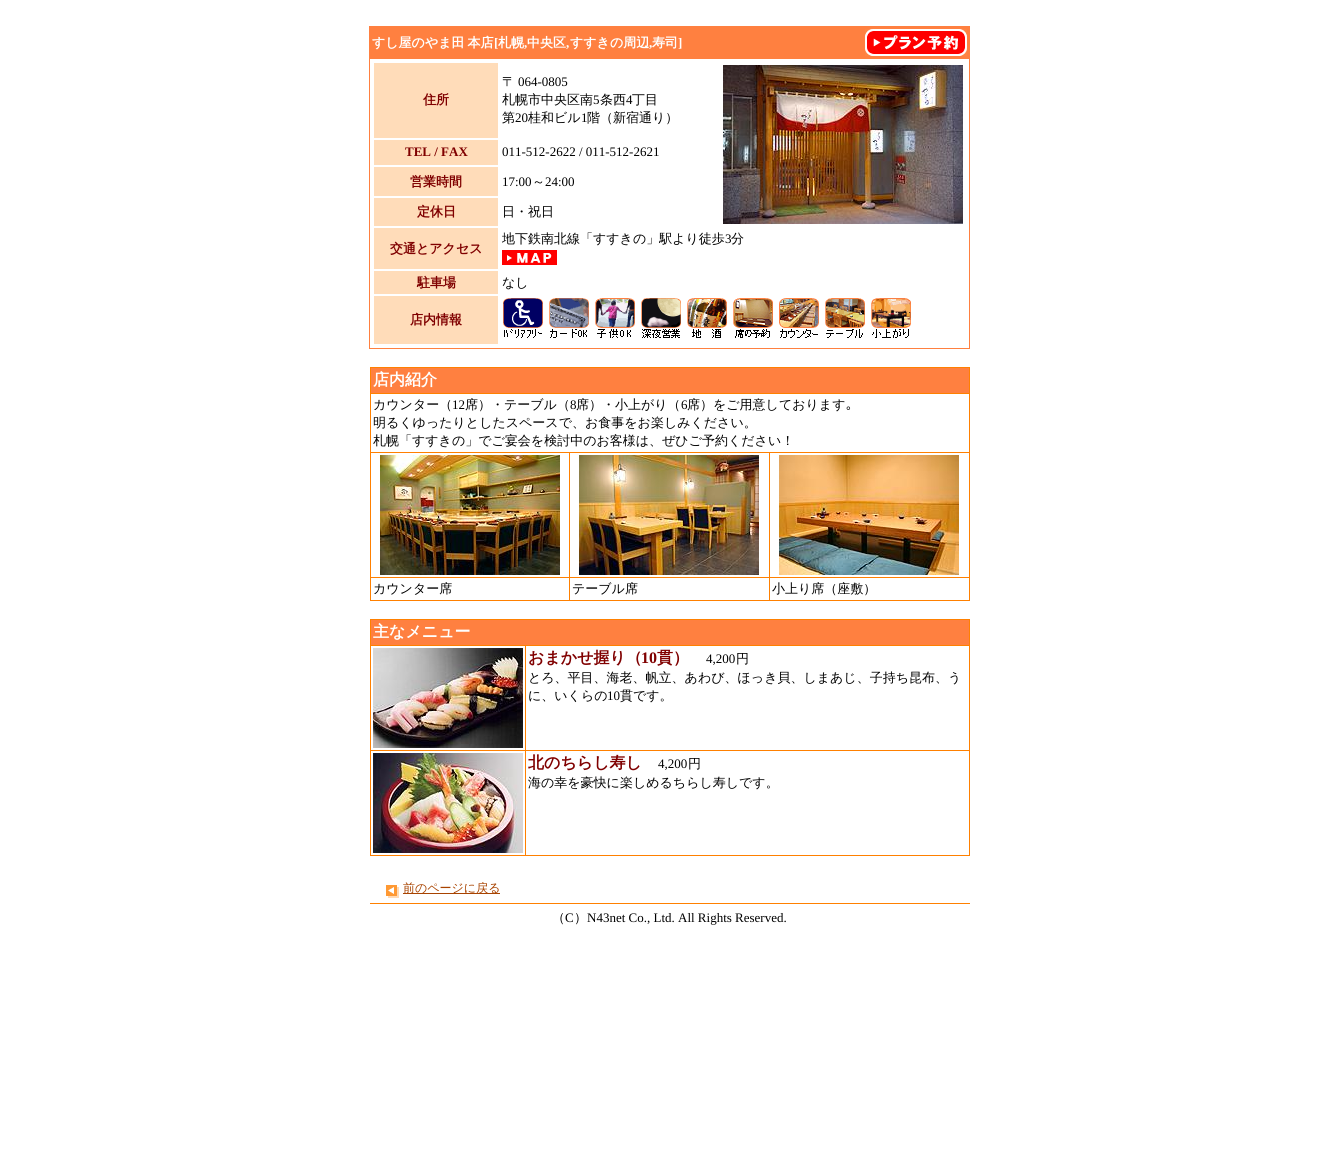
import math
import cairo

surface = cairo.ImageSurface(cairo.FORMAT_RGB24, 1339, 1159)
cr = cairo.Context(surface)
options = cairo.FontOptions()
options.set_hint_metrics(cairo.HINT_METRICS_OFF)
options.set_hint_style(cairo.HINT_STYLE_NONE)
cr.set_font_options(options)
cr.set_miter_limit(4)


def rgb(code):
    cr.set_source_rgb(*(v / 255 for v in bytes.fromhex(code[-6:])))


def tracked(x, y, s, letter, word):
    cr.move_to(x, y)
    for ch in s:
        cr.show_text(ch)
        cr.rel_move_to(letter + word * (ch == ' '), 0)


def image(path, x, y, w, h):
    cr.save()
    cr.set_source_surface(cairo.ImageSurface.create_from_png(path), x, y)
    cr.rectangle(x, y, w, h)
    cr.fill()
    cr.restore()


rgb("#ffffff")
cr.paint()
rgb("#ff8040")
cr.rectangle(369, 26, 601, 323)
cr.fill()
image("img/1.png", 865, 29, 102, 27)
rgb("#ffffff")
cr.rectangle(370, 59, 599, 289)
cr.fill()
rgb("#ffdcb9")
cr.rectangle(374, 63, 124, 75)
cr.fill()
image("img/2.png", 723, 65, 240, 159)
for x, y, w, h, color in [
    (374, 140, 124, 25, "#ffdcb9"),
    (374, 167, 124, 29, "#ffdcb9"),
    (374, 198, 124, 28, "#ffdcb9"),
]:
    rgb(color)
    cr.rectangle(x, y, w, h)
    cr.fill()
image("img/3.png", 502, 250, 55, 15)
for x, y, w, h, color in [
    (374, 228, 124, 41, "#ffdcb9"),
    (374, 271, 124, 23, "#ffdcb9"),
    (374, 296, 124, 48, "#ffdcb9"),
]:
    rgb(color)
    cr.rectangle(x, y, w, h)
    cr.fill()
image("img/4.png", 503, 298, 40, 40)
image("img/5.png", 549, 298, 40, 40)
image("img/6.png", 595, 298, 40, 40)
image("img/7.png", 641, 298, 40, 40)
image("img/8.png", 687, 298, 40, 40)
image("img/9.png", 733, 298, 40, 40)
image("img/10.png", 779, 298, 40, 40)
image("img/11.png", 825, 298, 40, 40)
image("img/12.png", 871, 298, 40, 40)
for x, y, w, h, color in [
    (370, 367, 600, 234, "#ff8000"),
    (371, 368, 598, 25, "#ff8040"),
    (371, 394, 598, 58, "#ffffff"),
    (371, 453, 198, 124, "#ffffff"),
]:
    rgb(color)
    cr.rectangle(x, y, w, h)
    cr.fill()
image("img/13.png", 380, 455, 180, 120)
cr.rectangle(570, 453, 199, 124)
cr.fill()
image("img/14.png", 579, 455, 180, 120)
cr.rectangle(770, 453, 199, 124)
cr.fill()
image("img/15.png", 779, 455, 180, 120)
for x, y, w, h, color in [
    (371, 578, 198, 22, "#ffffff"),
    (570, 578, 199, 22, "#ffffff"),
    (770, 578, 199, 22, "#ffffff"),
    (370, 619, 600, 237, "#ff8000"),
    (371, 620, 598, 25, "#ff8040"),
    (371, 646, 154, 104, "#ffffff"),
]:
    rgb(color)
    cr.rectangle(x, y, w, h)
    cr.fill()
image("img/16.png", 373, 648, 150, 100)
cr.rectangle(526, 646, 443, 104)
cr.fill()
cr.rectangle(371, 751, 154, 104)
cr.fill()
image("img/17.png", 373, 753, 150, 100)
cr.rectangle(526, 751, 443, 104)
cr.fill()
image("img/18.png", 386, 885, 13, 13)
rgb("#a84300")
cr.rectangle(403, 893, 97, 1)
cr.fill()
rgb("#ff8000")
cr.rectangle(370, 903, 600, 1)
cr.fill()
cr.select_font_face("WenQuanYi Zen Hei", cairo.FONT_SLANT_NORMAL, cairo.FONT_WEIGHT_BOLD)
cr.set_font_size(13)
rgb("#ffffff")
tracked(372, 47, "すし屋のやま田 本店", 0, -1)
cr.select_font_face("Liberation Serif", cairo.FONT_SLANT_NORMAL, cairo.FONT_WEIGHT_BOLD)
cr.move_to(494, 47)
cr.show_text("[")
cr.select_font_face("WenQuanYi Zen Hei", cairo.FONT_SLANT_NORMAL, cairo.FONT_WEIGHT_BOLD)
cr.move_to(498, 47)
cr.show_text("札幌")
cr.select_font_face("Liberation Serif", cairo.FONT_SLANT_NORMAL, cairo.FONT_WEIGHT_BOLD)
cr.move_to(524, 47)
cr.show_text(",")
cr.select_font_face("WenQuanYi Zen Hei", cairo.FONT_SLANT_NORMAL, cairo.FONT_WEIGHT_BOLD)
cr.move_to(527, 47)
cr.show_text("中央区")
cr.select_font_face("Liberation Serif", cairo.FONT_SLANT_NORMAL, cairo.FONT_WEIGHT_BOLD)
cr.move_to(566, 47)
cr.show_text(",")
cr.select_font_face("WenQuanYi Zen Hei", cairo.FONT_SLANT_NORMAL, cairo.FONT_WEIGHT_BOLD)
cr.move_to(570, 47)
cr.show_text("すすきの周辺")
cr.select_font_face("Liberation Serif", cairo.FONT_SLANT_NORMAL, cairo.FONT_WEIGHT_BOLD)
cr.move_to(649, 47)
cr.show_text(",")
cr.select_font_face("WenQuanYi Zen Hei", cairo.FONT_SLANT_NORMAL, cairo.FONT_WEIGHT_BOLD)
cr.move_to(652, 47)
cr.show_text("寿司")
cr.select_font_face("Liberation Serif", cairo.FONT_SLANT_NORMAL, cairo.FONT_WEIGHT_BOLD)
cr.move_to(678, 47)
cr.show_text("]")
cr.select_font_face("WenQuanYi Zen Hei", cairo.FONT_SLANT_NORMAL, cairo.FONT_WEIGHT_BOLD)
rgb("#800000")
cr.move_to(423, 104)
cr.show_text("住所")
cr.select_font_face("WenQuanYi Zen Hei Medium")
rgb("#000000")
cr.move_to(502, 86)
cr.show_text("〒")
cr.select_font_face("Liberation Serif")
cr.move_to(518, 86)
cr.show_text("064-0805")
cr.select_font_face("WenQuanYi Zen Hei Medium")
cr.move_to(502, 104)
cr.show_text("札幌市中央区南")
cr.select_font_face("Liberation Serif")
cr.move_to(593, 104)
cr.show_text("5")
cr.select_font_face("WenQuanYi Zen Hei Medium")
cr.move_to(600, 104)
cr.show_text("条西")
cr.select_font_face("Liberation Serif")
cr.move_to(626, 104)
cr.show_text("4")
cr.select_font_face("WenQuanYi Zen Hei Medium")
cr.move_to(632, 104)
cr.show_text("丁目")
cr.move_to(502, 122)
cr.show_text("第")
cr.select_font_face("Liberation Serif")
cr.move_to(515, 122)
cr.show_text("20")
cr.select_font_face("WenQuanYi Zen Hei Medium")
cr.move_to(528, 122)
cr.show_text("桂和ビル")
cr.select_font_face("Liberation Serif")
cr.move_to(581, 122)
cr.show_text("1")
cr.select_font_face("WenQuanYi Zen Hei Medium")
cr.move_to(587, 122)
cr.show_text("階（新宿通り）")
cr.select_font_face("Liberation Serif", cairo.FONT_SLANT_NORMAL, cairo.FONT_WEIGHT_BOLD)
rgb("#800000")
cr.move_to(405, 156)
cr.show_text("TEL / FAX")
cr.select_font_face("Liberation Serif")
rgb("#000000")
cr.move_to(502, 156)
cr.show_text("011-512-2622 / 011-512-2621")
cr.select_font_face("WenQuanYi Zen Hei", cairo.FONT_SLANT_NORMAL, cairo.FONT_WEIGHT_BOLD)
rgb("#800000")
cr.move_to(410, 186)
cr.show_text("営業時間")
cr.select_font_face("Liberation Serif")
rgb("#000000")
cr.move_to(502, 186)
cr.show_text("17:00")
cr.select_font_face("WenQuanYi Zen Hei Medium")
cr.move_to(532, 186)
cr.show_text("～")
cr.select_font_face("Liberation Serif")
cr.move_to(545, 186)
cr.show_text("24:00")
cr.select_font_face("WenQuanYi Zen Hei", cairo.FONT_SLANT_NORMAL, cairo.FONT_WEIGHT_BOLD)
rgb("#800000")
cr.move_to(417, 216)
cr.show_text("定休日")
cr.select_font_face("WenQuanYi Zen Hei Medium")
rgb("#000000")
cr.move_to(502, 216)
cr.show_text("日・祝日")
cr.move_to(502, 243)
cr.show_text("地下鉄南北線「すすきの」駅より徒歩")
cr.select_font_face("Liberation Serif")
cr.move_to(725, 243)
cr.show_text("3")
cr.select_font_face("WenQuanYi Zen Hei Medium")
cr.move_to(731, 243)
cr.show_text("分")
cr.select_font_face("WenQuanYi Zen Hei", cairo.FONT_SLANT_NORMAL, cairo.FONT_WEIGHT_BOLD)
rgb("#800000")
cr.move_to(390, 253)
cr.show_text("交通とアクセス")
cr.move_to(417, 287)
cr.show_text("駐車場")
cr.select_font_face("WenQuanYi Zen Hei Medium")
rgb("#000000")
cr.move_to(502, 287)
cr.show_text("なし")
cr.select_font_face("WenQuanYi Zen Hei", cairo.FONT_SLANT_NORMAL, cairo.FONT_WEIGHT_BOLD)
rgb("#800000")
cr.move_to(410, 324)
cr.show_text("店内情報")
cr.set_font_size(16)
rgb("#ffffff")
cr.move_to(373, 385)
cr.show_text("店内紹介")
cr.select_font_face("WenQuanYi Zen Hei Medium")
cr.set_font_size(13)
rgb("#000000")
cr.move_to(373, 409)
cr.show_text("カウンター（")
cr.select_font_face("Liberation Serif")
cr.move_to(452, 409)
cr.show_text("12")
cr.select_font_face("WenQuanYi Zen Hei Medium")
cr.move_to(465, 409)
cr.show_text("席）・テーブル（")
cr.select_font_face("Liberation Serif")
cr.move_to(570, 409)
cr.show_text("8")
cr.select_font_face("WenQuanYi Zen Hei Medium")
cr.move_to(576, 409)
cr.show_text("席）・小上がり（")
cr.select_font_face("Liberation Serif")
cr.move_to(681, 409)
cr.show_text("6")
cr.select_font_face("WenQuanYi Zen Hei Medium")
cr.move_to(687, 409)
cr.show_text("席）をご用意しております")
cr.select_font_face("IPAGothic")
cr.move_to(846, 409)
cr.show_text("｡")
cr.select_font_face("WenQuanYi Zen Hei Medium")
for x, y, s in [
    (373, 427, "明るくゆったりとしたスペースで、お食事をお楽しみください。"),
    (373, 445, "札幌「すすきの」でご宴会を検討中のお客様は、ぜひご予約ください！"),
    (373, 593, "カウンター席"),
    (572, 593, "テーブル席"),
    (772, 593, "小上り席（座敷）"),
]:
    cr.move_to(x, y)
    cr.show_text(s)
cr.select_font_face("WenQuanYi Zen Hei", cairo.FONT_SLANT_NORMAL, cairo.FONT_WEIGHT_BOLD)
cr.set_font_size(16)
rgb("#ffffff")
cr.move_to(373, 637)
cr.show_text("主なメニュー")
rgb("#800000")
cr.move_to(528, 663)
cr.show_text("おまかせ握り（")
cr.select_font_face("Liberation Serif", cairo.FONT_SLANT_NORMAL, cairo.FONT_WEIGHT_BOLD)
cr.move_to(641, 663)
cr.show_text("10")
cr.select_font_face("WenQuanYi Zen Hei", cairo.FONT_SLANT_NORMAL, cairo.FONT_WEIGHT_BOLD)
cr.move_to(657, 663)
cr.show_text("貫）")
cr.select_font_face("Liberation Serif")
cr.set_font_size(13)
rgb("#000000")
cr.move_to(706, 663)
cr.show_text("4,200")
cr.select_font_face("WenQuanYi Zen Hei Medium")
for x, y, s in [
    (736, 663, "円"),
    (528, 682, "とろ、平目、海老、帆立、あわび、ほっき貝、しまあじ、子持ち昆布、う"),
    (528, 700, "に、いくらの"),
]:
    cr.move_to(x, y)
    cr.show_text(s)
cr.select_font_face("Liberation Serif")
cr.move_to(607, 700)
cr.show_text("10")
cr.select_font_face("WenQuanYi Zen Hei Medium")
cr.move_to(620, 700)
cr.show_text("貫です。")
cr.select_font_face("WenQuanYi Zen Hei", cairo.FONT_SLANT_NORMAL, cairo.FONT_WEIGHT_BOLD)
cr.set_font_size(16)
rgb("#800000")
cr.move_to(528, 768)
cr.show_text("北のちらし寿し")
cr.select_font_face("Liberation Serif")
cr.set_font_size(13)
rgb("#000000")
cr.move_to(658, 768)
cr.show_text("4,200")
cr.select_font_face("WenQuanYi Zen Hei Medium")
cr.move_to(688, 768)
cr.show_text("円")
cr.move_to(528, 787)
cr.show_text("海の幸を豪快に楽しめるちらし寿しです。")
cr.set_font_size(12)
rgb("#a84300")
cr.move_to(403, 892)
cr.show_text("前のページに戻る")
cr.set_font_size(13)
rgb("#000000")
cr.move_to(552, 922)
cr.show_text("（")
cr.select_font_face("Liberation Serif")
cr.move_to(565, 922)
cr.show_text("C")
cr.select_font_face("WenQuanYi Zen Hei Medium")
cr.move_to(574, 922)
cr.show_text("）")
cr.select_font_face("Liberation Serif")
cr.move_to(587, 922)
cr.show_text("N43net Co., Ltd. All Rights Reserved.")
surface.write_to_png("page.png")
